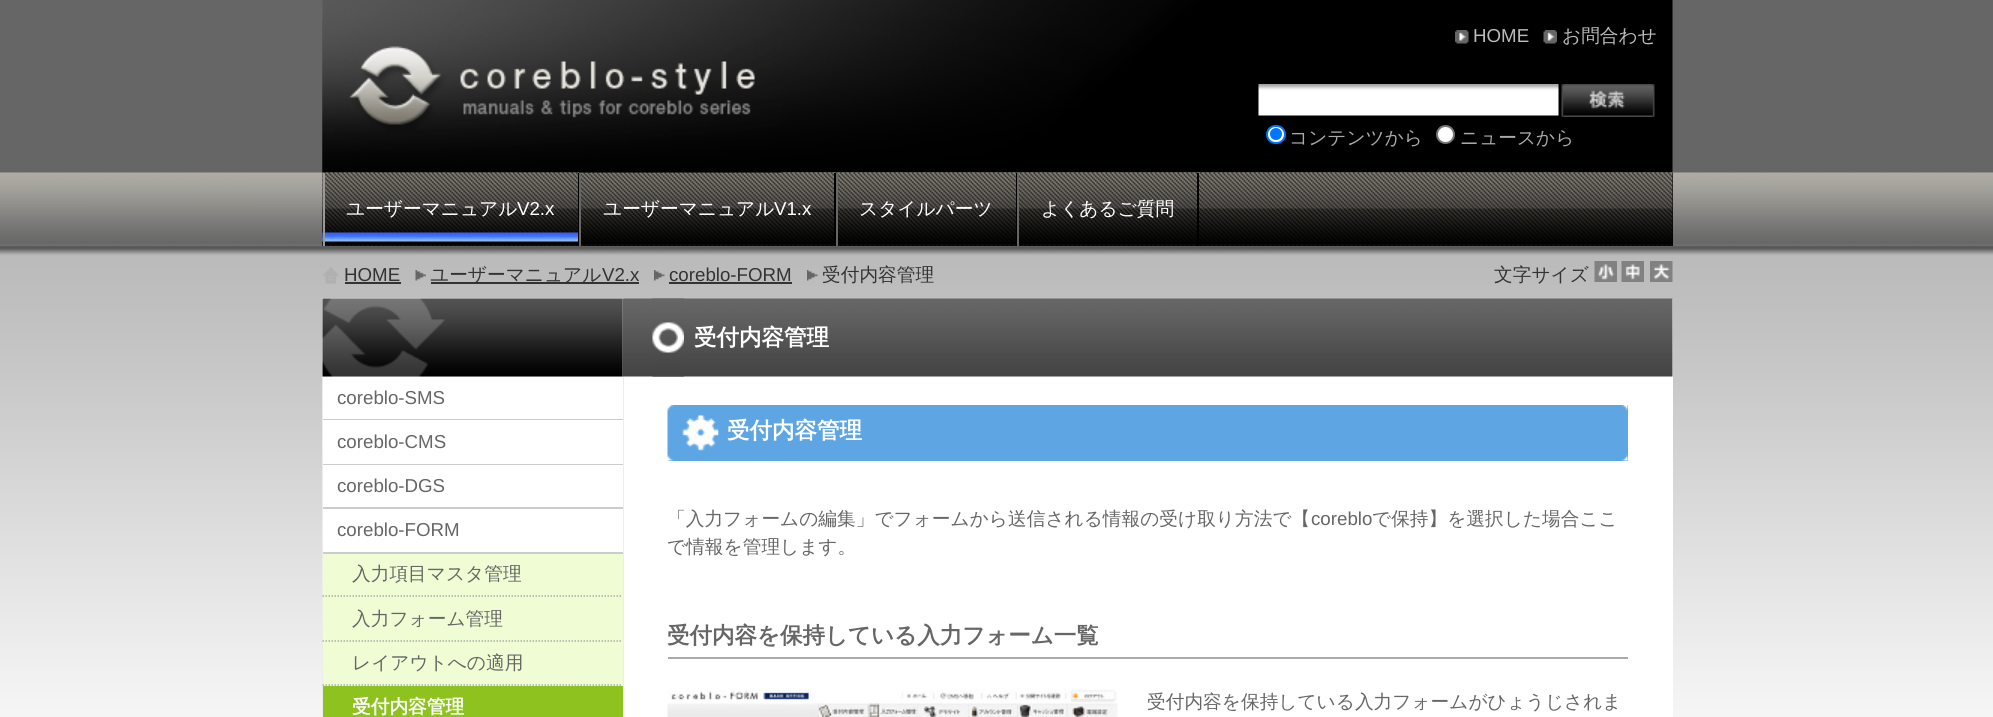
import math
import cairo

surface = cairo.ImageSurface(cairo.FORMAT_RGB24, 1993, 717)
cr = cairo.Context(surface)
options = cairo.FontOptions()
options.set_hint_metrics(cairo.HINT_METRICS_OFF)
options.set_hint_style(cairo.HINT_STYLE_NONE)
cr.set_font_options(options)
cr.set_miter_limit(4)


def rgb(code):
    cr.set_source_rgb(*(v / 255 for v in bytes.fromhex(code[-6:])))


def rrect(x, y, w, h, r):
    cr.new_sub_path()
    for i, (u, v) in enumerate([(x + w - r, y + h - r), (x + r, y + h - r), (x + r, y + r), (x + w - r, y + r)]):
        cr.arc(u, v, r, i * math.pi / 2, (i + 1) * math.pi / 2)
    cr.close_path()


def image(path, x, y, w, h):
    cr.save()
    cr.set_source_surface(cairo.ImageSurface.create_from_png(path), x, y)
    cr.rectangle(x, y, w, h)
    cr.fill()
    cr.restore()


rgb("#ffffff")
cr.paint()
image("img/1.png", 0, 0, 1993, 717)
image("img/2.png", 322, 0, 1351, 173)
rgb("#000000")
cr.rectangle(1672, 173, 1, 73)
cr.fill()
image("img/8.png", 322, 172, 1351, 74)
image("img/3.png", 322, 20, 460, 153)
image("img/4.png", 1455, 30, 14, 14)
image("img/5.png", 1543, 30, 14, 14)
image("img/6.png", 1258, 84, 301, 32)
image("img/7.png", 1561, 84, 94, 33)
rgb("#ffffff")
rrect(1267, 126, 18, 17, 8.5)
cr.fill_preserve()
rgb("#0075ff")
cr.stroke()
cr.arc(1276, 134, 6, 0, 2 * math.pi)
cr.fill()
rgb("#ffffff")
cr.arc(1445.5, 134.5, 8.5, 0, 2 * math.pi)
cr.fill_preserve()
rgb("#767676")
cr.stroke()
image("img/9.png", 322, 172, 257, 74)
for x, y, w, h, color in [
    (578, 173, 1, 73, "#000000"),
    (323, 173, 2, 73, "#999999"),
    (834, 173, 2, 73, "#000000"),
    (579, 173, 2, 73, "#666666"),
    (1016, 173, 1, 73, "#000000"),
    (836, 173, 2, 73, "#666666"),
    (1197, 173, 2, 73, "#000000"),
    (1017, 173, 2, 73, "#666666"),
]:
    rgb(color)
    cr.rectangle(x, y, w, h)
    cr.fill()
image("img/10.png", 322, 267, 17, 17)
rgb("#333333")
cr.rectangle(345, 282, 56, 2)
cr.fill()
image("img/11.png", 415, 270, 11, 11)
cr.rectangle(431, 282, 208, 2)
cr.fill()
image("img/12.png", 654, 270, 11, 11)
cr.rectangle(669, 282, 123, 2)
cr.fill()
image("img/12.png", 807, 270, 11, 11)
image("img/13.png", 1594, 261, 23, 21)
image("img/14.png", 1621, 261, 23, 21)
image("img/15.png", 1650, 261, 23, 21)
rgb("#ffffff")
cr.rectangle(624, 299, 1049, 418)
cr.fill()
rgb("#eeece9")
cr.rectangle(322, 298, 302, 419)
cr.fill()
image("img/17.png", 622, 298, 1051, 79)
image("img/16.png", 322, 298, 301, 79)
for x, y, w, h, color in [
    (323, 377, 300, 175, "#ffffff"),
    (323, 419, 300, 1, "#cccccc"),
    (323, 464, 300, 1, "#cccccc"),
    (323, 507, 300, 2, "#cccccc"),
    (323, 552, 300, 2, "#cccccc"),
    (323, 554, 300, 132, "#f0fdd4"),
]:
    rgb(color)
    cr.rectangle(x, y, w, h)
    cr.fill()
cr.new_path()
cr.move_to(322.5, 596)
cr.line_to(622.5, 596)
rgb("#aaaaaa")
cr.set_line_width(1.5)
cr.set_dash([1.5, 1.5])
cr.stroke()
cr.new_path()
cr.move_to(322.5, 641)
cr.line_to(622.5, 641)
cr.stroke()
cr.new_path()
cr.move_to(322.5, 685)
cr.line_to(622.5, 685)
cr.stroke()
rgb("#8ec31f")
cr.rectangle(323, 686, 300, 31)
cr.fill()
image("img/18.png", 652, 298, 32, 79)
rgb("#5ea6e3")
cr.rectangle(668, 405, 960, 56)
cr.fill()
image("img/19.png", 1621, 405, 7, 56)
image("img/20.png", 667, 405, 52, 56)
rgb("#aaaaaa")
cr.rectangle(668, 657, 960, 2)
cr.fill()
image("img/21.png", 667, 688, 451, 29)
cr.select_font_face("Liberation Sans")
cr.set_font_size(18.7)
rgb("#bbbbbb")
cr.move_to(1473, 42)
cr.show_text("HOME")
cr.select_font_face("WenQuanYi Zen Hei Medium")
cr.move_to(1562, 42)
cr.show_text("お問合わせ")
rgb("#aaaaaa")
cr.move_to(1289, 144)
cr.show_text("コンテンツから")
cr.move_to(1460, 144)
cr.show_text("ニュースから")
rgb("#ffffff")
cr.move_to(346, 215)
cr.show_text("ユーザーマニュアル")
cr.select_font_face("Liberation Sans")
cr.move_to(517, 215)
cr.show_text("V2.x")
cr.select_font_face("WenQuanYi Zen Hei Medium")
cr.move_to(603, 215)
cr.show_text("ユーザーマニュアル")
cr.select_font_face("Liberation Sans")
cr.move_to(774, 215)
cr.show_text("V1.x")
cr.select_font_face("WenQuanYi Zen Hei Medium")
cr.move_to(859, 215)
cr.show_text("スタイルパーツ")
cr.move_to(1041, 215)
cr.show_text("よくあるご質問")
cr.select_font_face("Liberation Sans")
rgb("#333333")
cr.move_to(344, 281)
cr.show_text("HOME")
cr.select_font_face("WenQuanYi Zen Hei Medium")
cr.move_to(430, 281)
cr.show_text("ユーザーマニュアル")
cr.select_font_face("Liberation Sans")
cr.move_to(602, 281)
cr.show_text("V2.x")
cr.move_to(669, 281)
cr.show_text("coreblo-FORM")
cr.select_font_face("WenQuanYi Zen Hei Medium")
cr.move_to(822, 281)
cr.show_text("受付内容管理")
cr.move_to(1494, 281)
cr.show_text("文字サイズ")
cr.select_font_face("Liberation Sans")
rgb("#666666")
for x, y, s in [
    (337, 404, "coreblo-SMS"),
    (337, 448, "coreblo-CMS"),
    (337, 492, "coreblo-DGS"),
    (337, 536, "coreblo-FORM"),
]:
    cr.move_to(x, y)
    cr.show_text(s)
cr.select_font_face("WenQuanYi Zen Hei Medium")
for x, y, s in [
    (352, 580, "入力項目マスタ管理"),
    (352, 625, "入力フォーム管理"),
    (352, 669, "レイアウトへの適用"),
]:
    cr.move_to(x, y)
    cr.show_text(s)
cr.select_font_face("WenQuanYi Zen Hei", cairo.FONT_SLANT_NORMAL, cairo.FONT_WEIGHT_BOLD)
rgb("#ffffff")
cr.move_to(352, 713)
cr.show_text("受付内容管理")
cr.set_font_size(22.5)
cr.move_to(694, 345)
cr.show_text("受付内容管理")
cr.move_to(727, 438)
cr.show_text("受付内容管理")
cr.select_font_face("WenQuanYi Zen Hei Medium")
cr.set_font_size(18.7)
rgb("#666666")
cr.move_to(667, 525)
cr.show_text("「入力フォームの編集」でフォームから送信される情報の受け取り方法で【")
cr.select_font_face("Liberation Sans")
cr.move_to(1311, 525)
cr.show_text("coreblo")
cr.select_font_face("WenQuanYi Zen Hei Medium")
cr.move_to(1372, 525)
cr.show_text("で保持】を選択した場合ここ")
cr.move_to(667, 553)
cr.show_text("で情報を管理します。")
cr.select_font_face("WenQuanYi Zen Hei", cairo.FONT_SLANT_NORMAL, cairo.FONT_WEIGHT_BOLD)
cr.set_font_size(22.5)
cr.move_to(667, 643)
cr.show_text("受付内容を保持している入力フォーム一覧")
cr.select_font_face("WenQuanYi Zen Hei Medium")
cr.set_font_size(18.7)
cr.move_to(1147, 708)
cr.show_text("受付内容を保持している入力フォームがひょうじされま")
surface.write_to_png("page.png")
